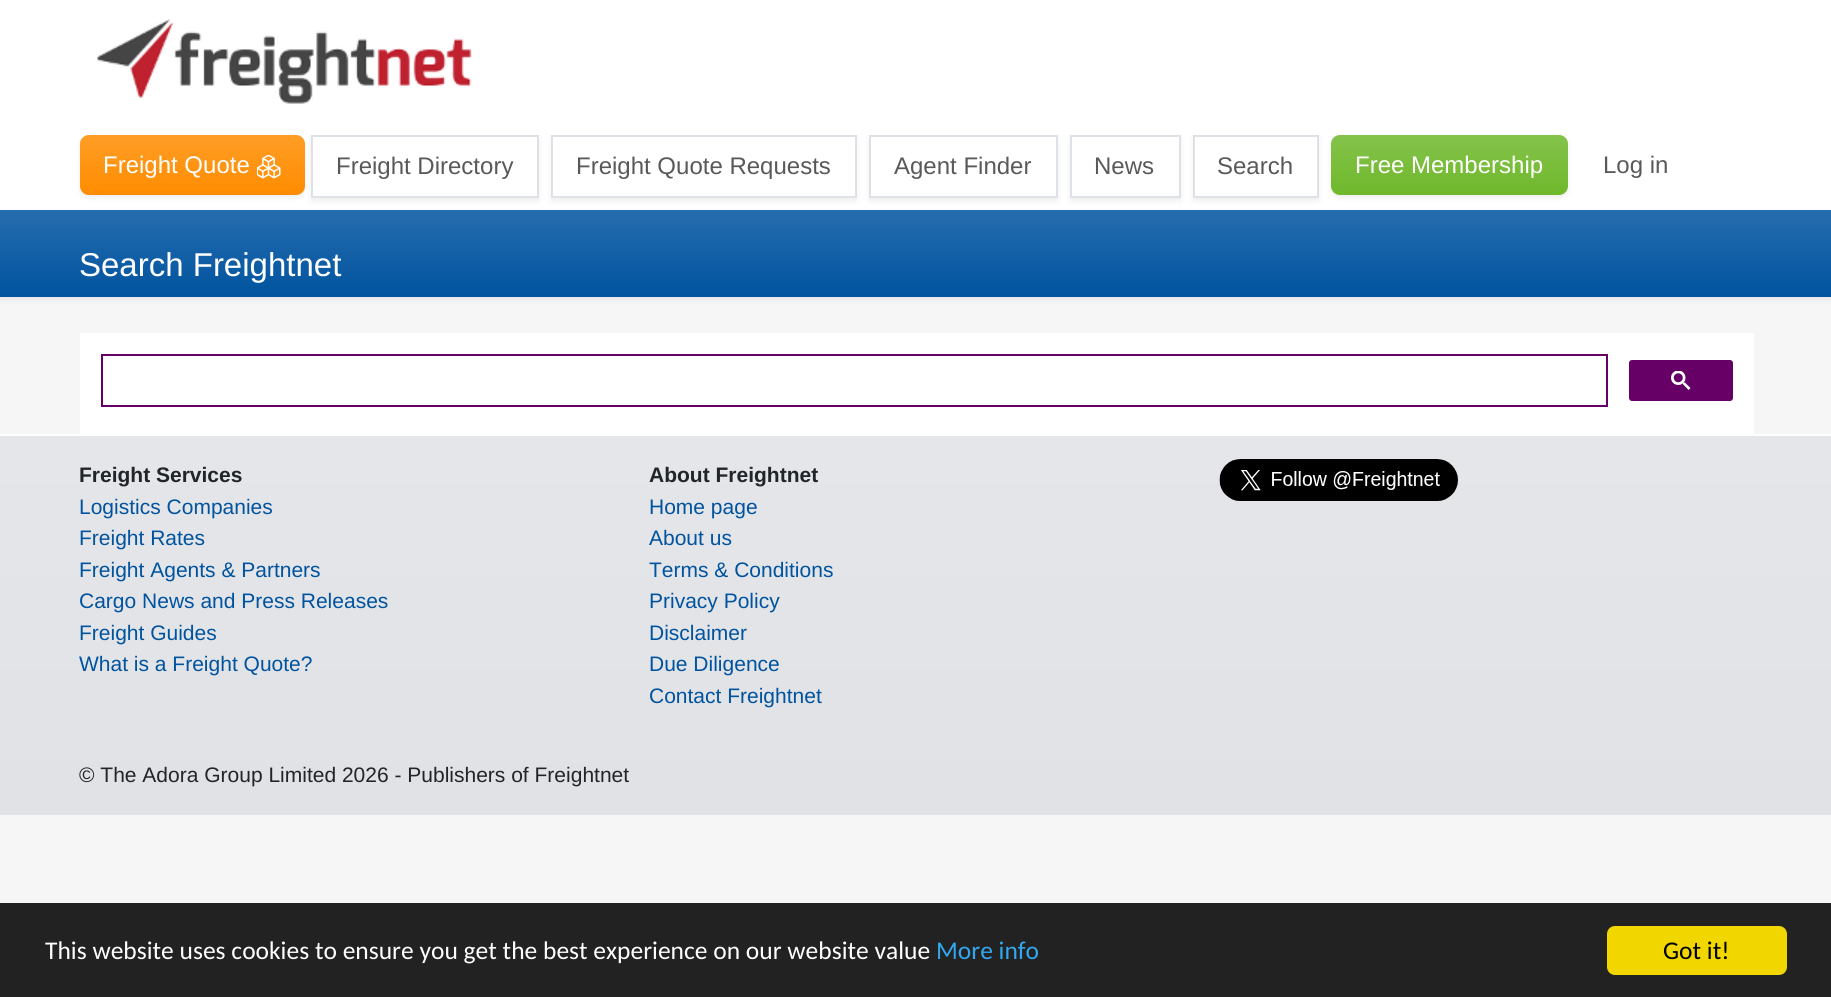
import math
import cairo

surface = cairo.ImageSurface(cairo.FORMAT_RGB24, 1831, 997)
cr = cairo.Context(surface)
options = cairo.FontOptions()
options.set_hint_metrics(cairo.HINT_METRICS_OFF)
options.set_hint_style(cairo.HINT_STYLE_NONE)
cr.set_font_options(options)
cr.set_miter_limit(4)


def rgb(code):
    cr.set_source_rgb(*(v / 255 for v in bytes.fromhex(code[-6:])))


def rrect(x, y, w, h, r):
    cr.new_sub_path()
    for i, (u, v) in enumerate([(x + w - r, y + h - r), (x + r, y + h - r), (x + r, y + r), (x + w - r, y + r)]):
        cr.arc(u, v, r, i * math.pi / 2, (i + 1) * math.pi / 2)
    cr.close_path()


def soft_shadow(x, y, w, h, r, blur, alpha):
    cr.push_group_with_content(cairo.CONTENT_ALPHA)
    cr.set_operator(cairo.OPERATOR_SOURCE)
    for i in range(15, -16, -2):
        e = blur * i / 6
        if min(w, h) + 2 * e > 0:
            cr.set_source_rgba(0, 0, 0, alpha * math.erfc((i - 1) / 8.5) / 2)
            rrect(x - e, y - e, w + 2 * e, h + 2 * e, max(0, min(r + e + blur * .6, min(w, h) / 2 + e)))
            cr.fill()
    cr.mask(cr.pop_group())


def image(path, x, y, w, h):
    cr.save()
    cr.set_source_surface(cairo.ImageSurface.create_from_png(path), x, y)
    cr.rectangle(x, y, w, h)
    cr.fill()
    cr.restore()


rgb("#f6f6f6")
cr.paint()
rgb("#ffffff")
cr.rectangle(0, 0, 1831, 210)
cr.fill()
image("img/1.png", 97, 19, 375, 85)
rgb("#000000")
soft_shadow(80, 138, 225, 60, 9, 3, 0.07)
rgb("#ff8c00")
rrect(80, 135, 225, 60, 9)
cr.fill()
gradient = cairo.LinearGradient(192, 135, 192, 195)
gradient.add_color_stop_rgba(0, 1, 1, 1, 0.15)
gradient.add_color_stop_rgba(1, 1, 1, 1, 0)
cr.set_source(gradient)
rrect(80, 135, 225, 60, 9)
cr.fill()
image("img/2.png", 257, 155, 24, 24)
rgb("#000000")
soft_shadow(0, 213, 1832, 87, 0, 3, 0.07)
gradient = cairo.LinearGradient(916, 210, 916, 297)
gradient.add_color_stop_rgba(0, 0.149, 0.427, 0.682, 1)
gradient.add_color_stop_rgba(1, 0, 0.325, 0.624, 1)
cr.set_source(gradient)
cr.rectangle(0, 210, 1831, 87)
cr.fill()
cr.save()
cr.set_fill_rule(cairo.FILL_RULE_EVEN_ODD)
cr.new_path()
cr.move_to(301, 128)
cr.line_to(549, 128)
cr.line_to(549, 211)
cr.line_to(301, 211)
cr.close_path()
cr.move_to(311, 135)
cr.line_to(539, 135)
cr.line_to(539, 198)
cr.line_to(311, 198)
cr.close_path()
cr.clip()
rgb("#000000")
soft_shadow(311, 138, 228, 63, 0, 3, 0.07)
cr.restore()
cr.rectangle(312, 136, 226, 61)
rgb("#dee2e6")
cr.stroke()
cr.save()
cr.set_fill_rule(cairo.FILL_RULE_EVEN_ODD)
cr.new_path()
cr.move_to(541, 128)
cr.line_to(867, 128)
cr.line_to(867, 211)
cr.line_to(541, 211)
cr.close_path()
cr.move_to(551, 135)
cr.line_to(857, 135)
cr.line_to(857, 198)
cr.line_to(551, 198)
cr.close_path()
cr.clip()
rgb("#000000")
soft_shadow(551, 138, 306, 63, 0, 3, 0.07)
cr.restore()
cr.rectangle(552, 136, 304, 61)
cr.stroke()
cr.save()
cr.set_fill_rule(cairo.FILL_RULE_EVEN_ODD)
cr.new_path()
cr.move_to(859, 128)
cr.line_to(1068, 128)
cr.line_to(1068, 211)
cr.line_to(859, 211)
cr.close_path()
cr.move_to(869, 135)
cr.line_to(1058, 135)
cr.line_to(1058, 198)
cr.line_to(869, 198)
cr.close_path()
cr.clip()
rgb("#000000")
soft_shadow(869, 138, 189, 63, 0, 3, 0.07)
cr.restore()
cr.rectangle(870, 136, 187, 61)
cr.stroke()
cr.save()
cr.set_fill_rule(cairo.FILL_RULE_EVEN_ODD)
cr.new_path()
cr.move_to(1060, 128)
cr.line_to(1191, 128)
cr.line_to(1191, 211)
cr.line_to(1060, 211)
cr.close_path()
cr.move_to(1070, 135)
cr.line_to(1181, 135)
cr.line_to(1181, 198)
cr.line_to(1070, 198)
cr.close_path()
cr.clip()
rgb("#000000")
soft_shadow(1070, 138, 111, 63, 0, 3, 0.07)
cr.restore()
cr.rectangle(1071, 136, 109, 61)
cr.stroke()
cr.save()
cr.set_fill_rule(cairo.FILL_RULE_EVEN_ODD)
cr.new_path()
cr.move_to(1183, 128)
cr.line_to(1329, 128)
cr.line_to(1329, 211)
cr.line_to(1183, 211)
cr.close_path()
cr.move_to(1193, 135)
cr.line_to(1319, 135)
cr.line_to(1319, 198)
cr.line_to(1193, 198)
cr.close_path()
cr.clip()
rgb("#000000")
soft_shadow(1193, 138, 126, 63, 0, 3, 0.07)
cr.restore()
cr.rectangle(1194, 136, 124, 61)
cr.stroke()
rgb("#000000")
soft_shadow(1331, 138, 237, 60, 9, 3, 0.07)
rgb("#6fb82b")
rrect(1331, 135, 237, 60, 9)
cr.fill()
gradient = cairo.LinearGradient(1449, 135, 1449, 195)
gradient.add_color_stop_rgba(0, 1, 1, 1, 0.15)
gradient.add_color_stop_rgba(1, 1, 1, 1, 0)
cr.set_source(gradient)
rrect(1331, 135, 237, 60, 9)
cr.fill()
rgb("#ffffff")
cr.rectangle(80, 333, 1674, 101)
cr.fill()
cr.rectangle(102, 355, 1505, 51)
rgb("#660066")
cr.stroke()
rrect(1630, 361, 102, 39, 2)
cr.fill_preserve()
cr.stroke()
image("img/3.png", 1671, 371, 20, 19)
gradient = cairo.LinearGradient(916, 435, 916, 815)
gradient.add_color_stop_rgba(0, 0.898, 0.902, 0.914, 1)
gradient.add_color_stop_rgba(1, 0.878, 0.886, 0.898, 1)
cr.set_source(gradient)
cr.rectangle(0, 436, 1831, 379)
cr.fill()
rgb("#ffffff")
cr.rectangle(0, 434, 1831, 2)
cr.fill()
image("img/4.png", 1219, 459, 239, 42)
rgb("#222222")
cr.rectangle(0, 903, 1831, 94)
cr.fill()
rgb("#f1d600")
rrect(1607, 926, 180, 49, 8)
cr.fill()
cr.select_font_face("Liberation Sans")
cr.set_font_size(24)
rgb("#ffffff")
cr.move_to(103, 173)
cr.show_text("Freight Quote")
rgb("#595959")
for x, y, s in [
    (336, 174, "Freight Directory"),
    (576, 174, "Freight Quote Requests"),
    (894, 174, "Agent Finder"),
    (1094, 174, "News"),
    (1217, 174, "Search"),
]:
    cr.move_to(x, y)
    cr.show_text(s)
rgb("#ffffff")
cr.move_to(1355, 173)
cr.show_text("Free Membership")
rgb("#595959")
cr.move_to(1603, 173)
cr.show_text("Log in")
cr.set_font_size(33)
rgb("#ffffff")
cr.move_to(79, 276)
cr.show_text("Search Freightnet")
cr.select_font_face("Liberation Sans", cairo.FONT_SLANT_NORMAL, cairo.FONT_WEIGHT_BOLD)
cr.set_font_size(21)
rgb("#212529")
cr.move_to(79, 482)
cr.show_text("Freight Services")
cr.select_font_face("Liberation Sans")
rgb("#00539f")
for x, y, s in [
    (79, 514, "Logistics Companies"),
    (79, 545, "Freight Rates"),
    (79, 577, "Freight Agents & Partners"),
    (79, 608, "Cargo News and Press Releases"),
    (79, 640, "Freight Guides"),
    (79, 671, "What is a Freight Quote?"),
]:
    cr.move_to(x, y)
    cr.show_text(s)
cr.select_font_face("Liberation Sans", cairo.FONT_SLANT_NORMAL, cairo.FONT_WEIGHT_BOLD)
rgb("#212529")
cr.move_to(649, 482)
cr.show_text("About Freightnet")
cr.select_font_face("Liberation Sans")
rgb("#00539f")
for x, y, s in [
    (649, 514, "Home page"),
    (649, 545, "About us"),
    (649, 577, "Terms & Conditions"),
    (649, 608, "Privacy Policy"),
    (649, 640, "Disclaimer"),
    (649, 671, "Due Diligence"),
    (649, 703, "Contact Freightnet"),
]:
    cr.move_to(x, y)
    cr.show_text(s)
rgb("#212529")
cr.move_to(79, 782)
cr.show_text("© The Adora Group Limited 2026 - Publishers of Freightnet")
cr.select_font_face("Carlito")
cr.set_font_size(25.5)
rgb("#ffffff")
cr.move_to(45, 959)
cr.show_text("This website uses cookies to ensure you get the best experience on our website value")
rgb("#31a8f0")
cr.move_to(936, 959)
cr.show_text("More info")
rgb("#000000")
cr.move_to(1663, 959)
cr.show_text("Got it!")
surface.write_to_png("page.png")
